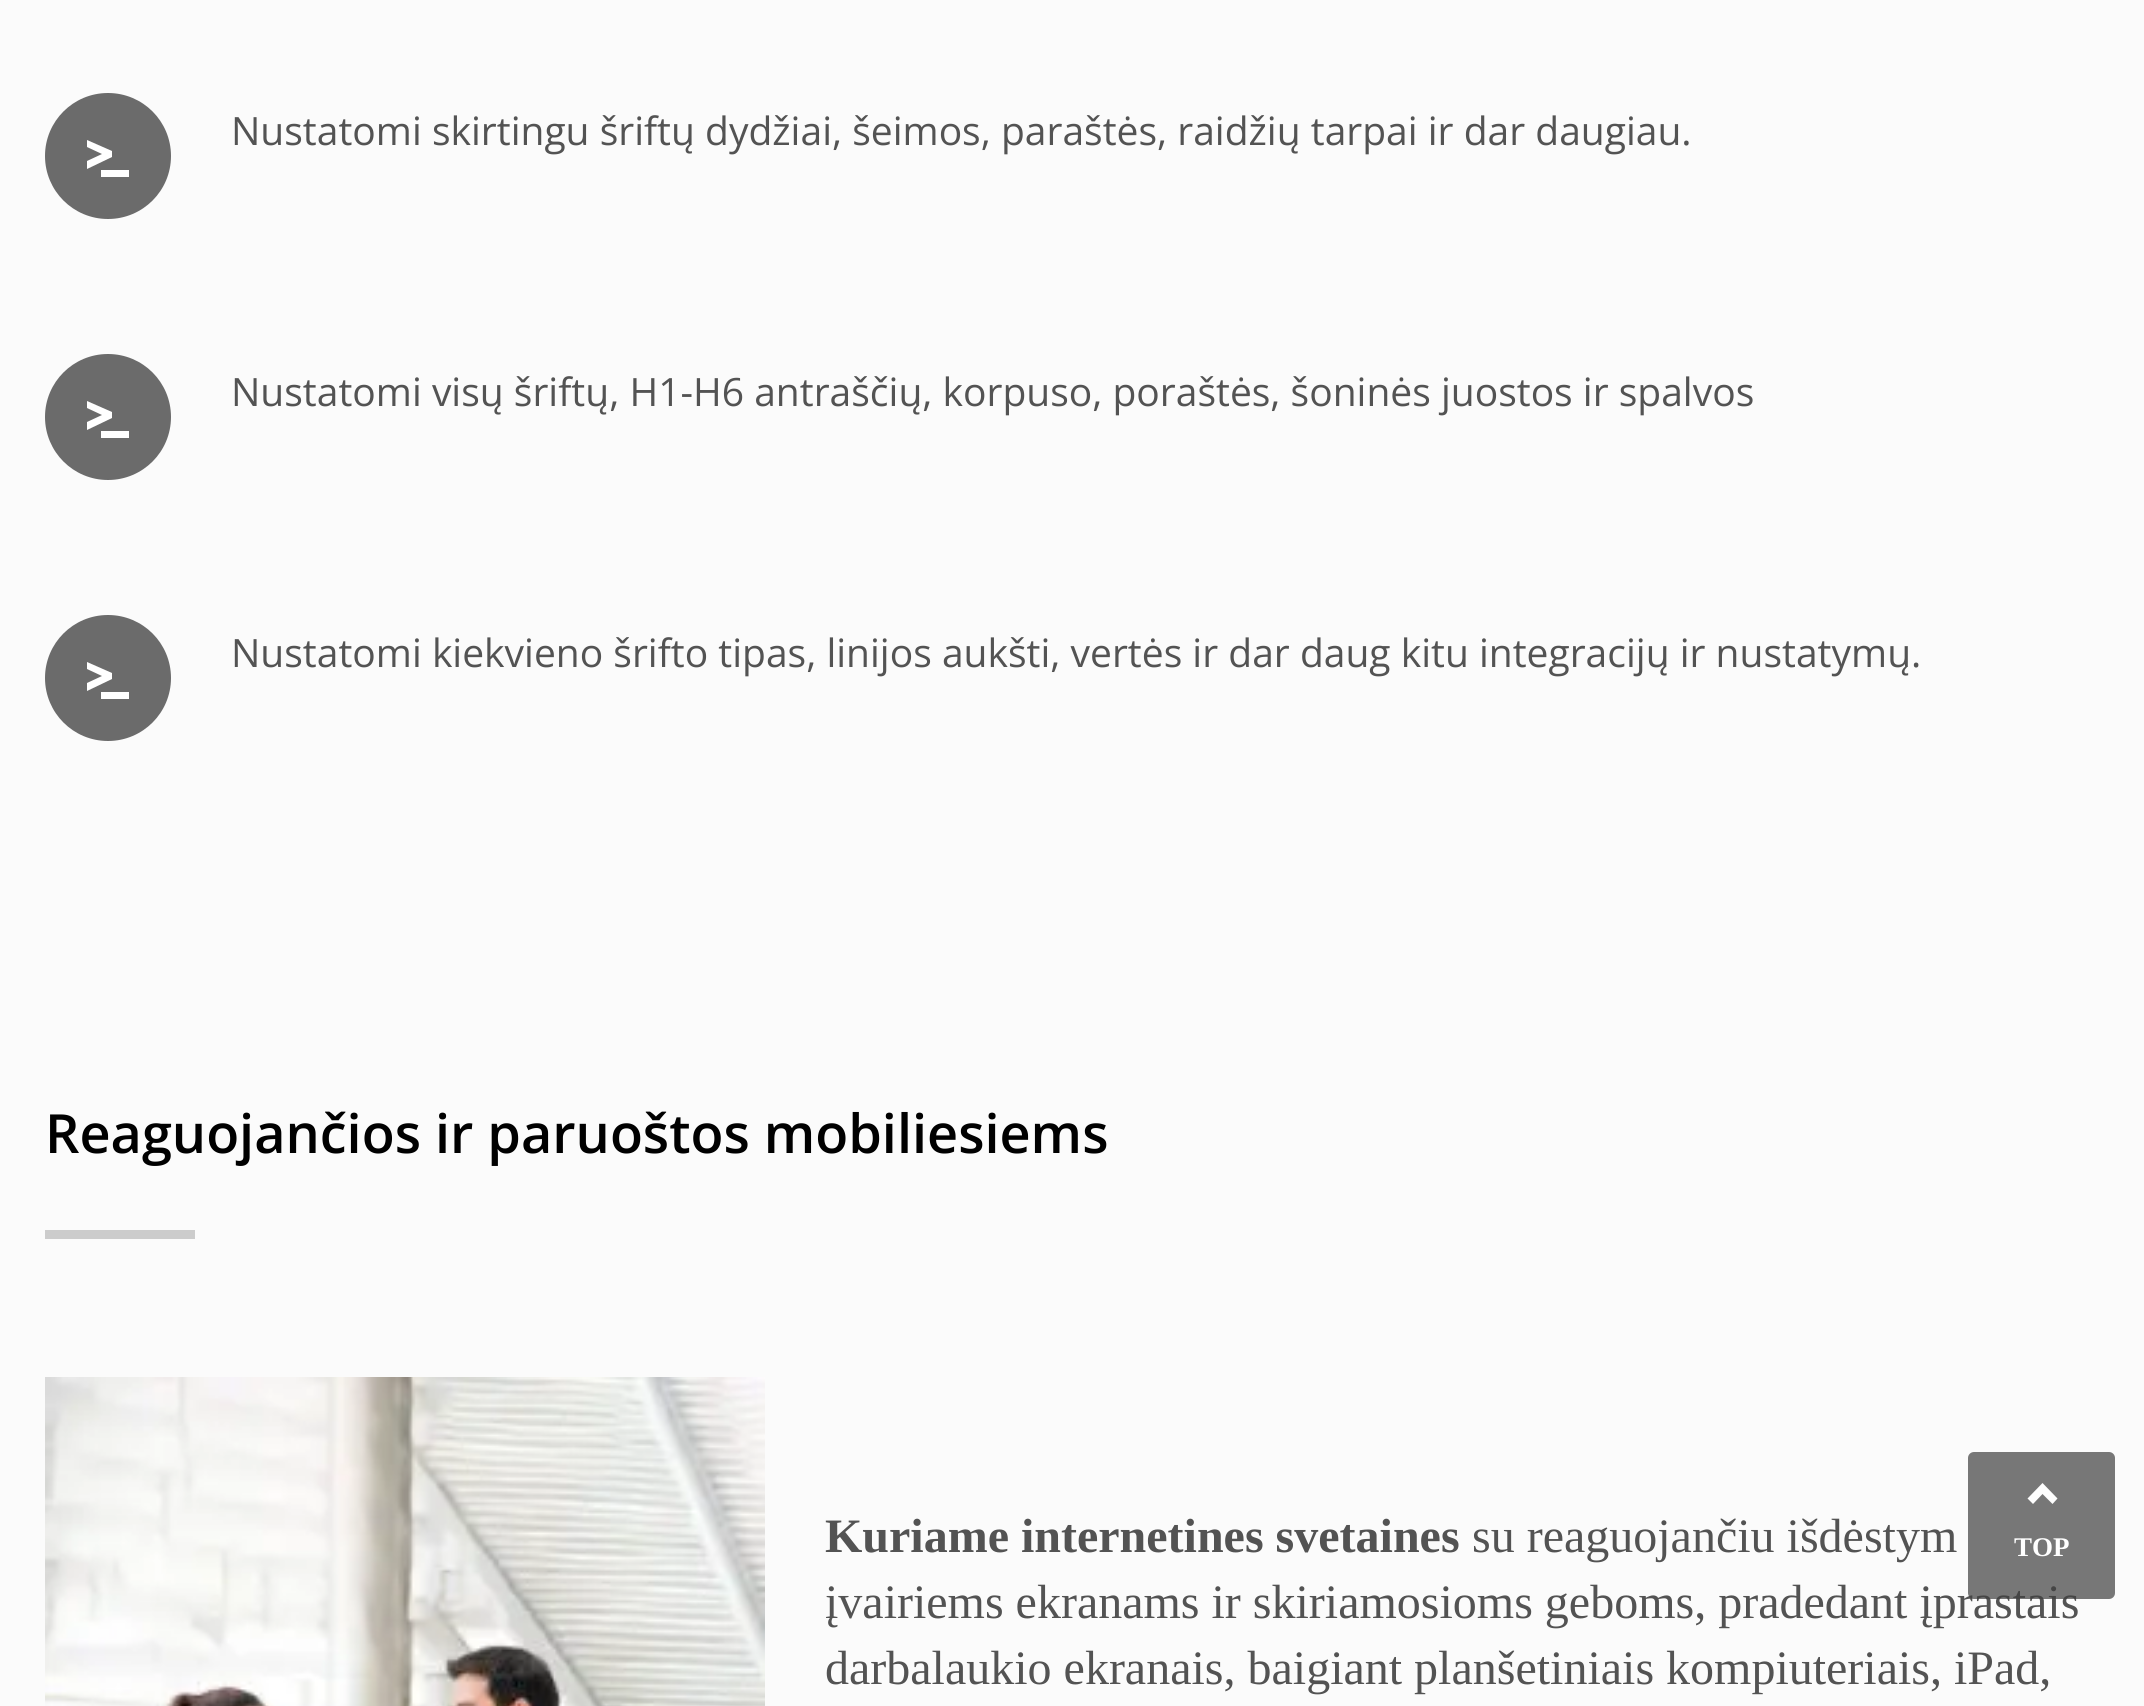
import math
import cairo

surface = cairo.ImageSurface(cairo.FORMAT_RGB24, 2144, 1706)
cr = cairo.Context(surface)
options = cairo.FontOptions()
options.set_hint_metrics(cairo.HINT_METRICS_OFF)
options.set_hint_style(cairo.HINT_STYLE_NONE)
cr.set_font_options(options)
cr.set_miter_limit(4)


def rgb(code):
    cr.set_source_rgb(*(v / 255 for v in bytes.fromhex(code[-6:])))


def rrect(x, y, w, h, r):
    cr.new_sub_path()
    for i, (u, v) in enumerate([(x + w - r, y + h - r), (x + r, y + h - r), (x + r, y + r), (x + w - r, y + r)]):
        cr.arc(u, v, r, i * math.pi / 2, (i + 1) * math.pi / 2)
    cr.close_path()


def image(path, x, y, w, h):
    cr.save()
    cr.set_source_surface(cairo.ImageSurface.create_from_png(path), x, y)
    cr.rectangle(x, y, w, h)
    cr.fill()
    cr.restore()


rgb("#fbfbfb")
cr.paint()
rgb("#6b6b6b")
cr.arc(108, 156, 63, 0, 2 * math.pi)
cr.fill()
rgb("#ffffff")
cr.new_path()
cr.move_to(112, 151)
cr.line_to(112, 157)
cr.line_to(87, 169)
cr.line_to(87, 161)
cr.line_to(102, 154)
cr.line_to(87, 147)
cr.line_to(87, 140)
cr.close_path()
cr.move_to(129, 177)
cr.line_to(101, 177)
cr.line_to(101, 170)
cr.line_to(129, 170)
cr.close_path()
cr.fill()
rgb("#6b6b6b")
cr.arc(108, 417, 63, 0, 2 * math.pi)
cr.fill()
rgb("#ffffff")
cr.new_path()
cr.move_to(112, 412)
cr.line_to(112, 418)
cr.line_to(87, 430)
cr.line_to(87, 422)
cr.line_to(102, 415)
cr.line_to(87, 408)
cr.line_to(87, 401)
cr.close_path()
cr.move_to(129, 438)
cr.line_to(101, 438)
cr.line_to(101, 431)
cr.line_to(129, 431)
cr.close_path()
cr.fill()
rgb("#6b6b6b")
cr.arc(108, 678, 63, 0, 2 * math.pi)
cr.fill()
rgb("#ffffff")
cr.new_path()
cr.move_to(112, 673)
cr.line_to(112, 679)
cr.line_to(87, 691)
cr.line_to(87, 683)
cr.line_to(102, 676)
cr.line_to(87, 669)
cr.line_to(87, 662)
cr.close_path()
cr.move_to(129, 699)
cr.line_to(101, 699)
cr.line_to(101, 692)
cr.line_to(129, 692)
cr.close_path()
cr.fill()
rgb("#cccccc")
cr.rectangle(45, 1230, 150, 9)
cr.fill()
image("img/1.png", 45, 1377, 720, 329)
cr.select_font_face("Open Sans")
cr.set_font_size(39)
rgb("#535353")
for x, y, s in [
    (231, 145, "Nustatomi skirtingu šriftų dydžiai, šeimos, paraštės, raidžių tarpai ir dar daugiau."),
    (231, 406, "Nustatomi visų šriftų, H1-H6 antraščių, korpuso, poraštės, šoninės juostos ir spalvos"),
    (231, 667, "Nustatomi kiekvieno šrifto tipas, linijos aukšti, vertės ir dar daug kitu integracijų ir nustatymų."),
]:
    cr.move_to(x, y)
    cr.show_text(s)
cr.select_font_face("Open Sans SemiBold")
cr.set_font_size(54)
rgb("#000000")
cr.move_to(45, 1153)
cr.show_text("Reaguojančios ir paruoštos mobiliesiems")
cr.select_font_face("Liberation Serif", cairo.FONT_SLANT_NORMAL, cairo.FONT_WEIGHT_BOLD)
cr.set_font_size(48)
rgb("#535353")
cr.move_to(825, 1552)
cr.show_text("Kuriame internetines svetaines")
cr.select_font_face("Liberation Serif")
for x, y, s in [
    (1472, 1552, "su reaguojančiu išdėstym"),
    (825, 1618, "įvairiems ekranams ir skiriamosioms geboms, pradedant įprastais"),
    (825, 1684, "darbalaukio ekranais, baigiant planšetiniais kompiuteriais, iPad,"),
]:
    cr.move_to(x, y)
    cr.show_text(s)
cr.set_source_rgba(0.251, 0.251, 0.251, 0.7)
rrect(1968, 1452, 147, 147, 6)
cr.fill()
rgb("#fefefe")
cr.new_path()
cr.move_to(2042.5, 1483)
cr.line_to(2057.5, 1498.5)
cr.line_to(2052.5, 1504)
cr.line_to(2042.5, 1494)
cr.line_to(2033, 1504)
cr.line_to(2027.5, 1498.5)
cr.close_path()
cr.fill()
cr.select_font_face("Liberation Serif", cairo.FONT_SLANT_NORMAL, cairo.FONT_WEIGHT_BOLD)
cr.set_font_size(27)
cr.move_to(2014, 1556)
cr.show_text("TOP")
surface.write_to_png("page.png")
